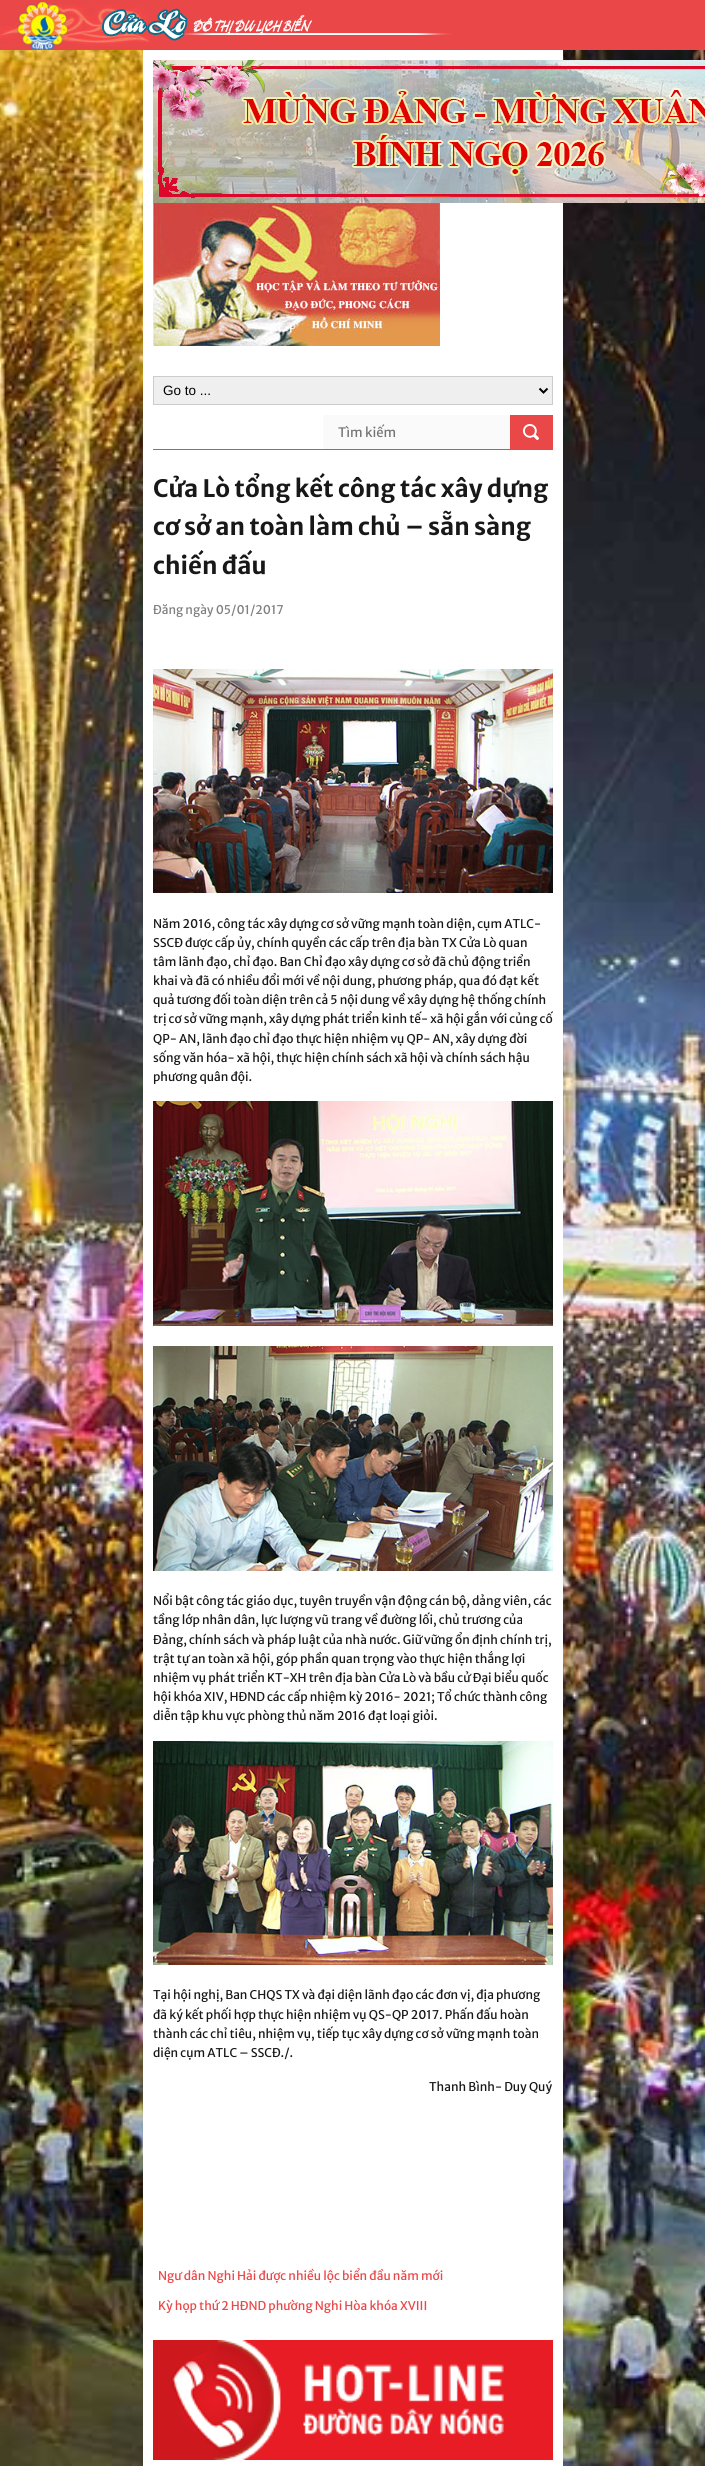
import math
import cairo

surface = cairo.ImageSurface(cairo.FORMAT_RGB24, 705, 2466)
cr = cairo.Context(surface)
options = cairo.FontOptions()
options.set_hint_metrics(cairo.HINT_METRICS_OFF)
options.set_hint_style(cairo.HINT_STYLE_NONE)
cr.set_font_options(options)
cr.set_miter_limit(4)


def rgb(code):
    cr.set_source_rgb(*(v / 255 for v in bytes.fromhex(code[-6:])))


def image(path, x, y, w, h):
    cr.save()
    cr.set_source_surface(cairo.ImageSurface.create_from_png(path), x, y)
    cr.rectangle(x, y, w, h)
    cr.fill()
    cr.restore()


rgb("#ffffff")
cr.paint()
rgb("#ea4748")
cr.rectangle(0, 0, 705, 50)
cr.fill()
image("img/1.png", 0, 4, 452, 42)
image("img/2.png", 17, 1, 56, 49)
image("img/3.png", 0, 50, 705, 2416)
rgb("#ffffff")
cr.rectangle(143, 50, 420, 2416)
cr.fill()
image("img/4.png", 153, 60, 552, 143)
image("img/5.png", 153, 203, 287, 143)
rgb("#ea4748")
cr.rectangle(153, 449, 400, 1)
cr.fill()
rgb("#efefef")
cr.rectangle(153.5, 376.5, 399, 28)
cr.fill_preserve()
rgb("#cccccc")
cr.set_line_width(1)
cr.stroke()
cr.new_path()
cr.move_to(539.5, 388.5)
cr.line_to(543.5, 392.5)
cr.line_to(547.5, 388.5)
rgb("#000000")
cr.set_line_width(2)
cr.stroke()
rgb("#fafafa")
cr.rectangle(323, 415, 187, 34)
cr.fill()
rgb("#ea4748")
cr.rectangle(510, 415, 43, 34)
cr.fill()
image("img/6.png", 523, 424, 16, 16)
image("img/7.png", 153, 669, 400, 224)
image("img/8.png", 153, 1101, 400, 225)
image("img/9.png", 153, 1346, 400, 225)
image("img/10.png", 153, 1741, 400, 224)
image("img/11.png", 153, 2340, 400, 120)
cr.select_font_face("Liberation Sans")
cr.set_font_size(13.5)
rgb("#000000")
cr.move_to(163, 395)
cr.show_text("Go to ...")
cr.select_font_face("Merriweather Sans")
cr.set_font_size(13)
rgb("#757575")
cr.move_to(338, 437)
cr.show_text("Tìm kiếm")
cr.select_font_face("Merriweather Sans", cairo.FONT_SLANT_NORMAL, cairo.FONT_WEIGHT_BOLD)
cr.set_font_size(24)
rgb("#181818")
for x, y, s in [
    (153, 497, "Cửa Lò tổng kết công tác xây dựng"),
    (153, 535, "cơ sở an toàn làm chủ – sẵn sàng"),
    (153, 574, "chiến đấu"),
]:
    cr.move_to(x, y)
    cr.show_text(s)
cr.select_font_face("Merriweather Sans")
cr.set_font_size(12)
rgb("#808080")
cr.move_to(153, 614)
cr.show_text("Đăng ngày 05/01/2017")
rgb("#181818")
for x, y, s in [
    (153, 928, "Năm 2016, công tác xây dựng cơ sở vững mạnh toàn diện, cụm ATLC-"),
    (153, 947, "SSCĐ được cấp ủy, chính quyền các cấp trên địa bàn TX Cửa Lò quan"),
    (153, 966, "tâm lãnh đạo, chỉ đạo. Ban Chỉ đạo xây dựng cơ sở đã chủ động triển"),
    (153, 985, "khai và đã có nhiều đổi mới về nội dung, phương pháp, qua đó đạt kết"),
    (153, 1004, "quả tương đối toàn diện trên cả 5 nội dung về xây dựng hệ thống chính"),
    (153, 1023, "trị cơ sở vững mạnh, xây dựng phát triển kinh tế- xã hội gắn với củng cố"),
    (153, 1043, "QP- AN, lãnh đạo chỉ đạo thực hiện nhiệm vụ QP- AN, xây dựng đời"),
    (153, 1062, "sống văn hóa- xã hội, thực hiện chính sách xã hội và chính sách hậu"),
    (153, 1081, "phương quân đội."),
    (153, 1605, "Nổi bật công tác giáo dục, tuyên truyền vận động cán bộ, dảng viên, các"),
    (153, 1624, "tầng lớp nhân dân, lực lượng vũ trang về đường lối, chủ trương của"),
    (153, 1644, "Đảng, chính sách và pháp luật của nhà nước. Giữ vững ổn định chính trị,"),
    (153, 1663, "trật tự an toàn xã hội, góp phần quan trọng vào thực hiện thắng lợi"),
    (153, 1682, "nhiệm vụ phát triển KT-XH trên địa bàn Cửa Lò và bầu cử Đại biểu quốc"),
    (153, 1701, "hội khóa XIV, HĐND các cấp nhiệm kỳ 2016- 2021; Tổ chức thành công"),
    (153, 1720, "diễn tập khu vực phòng thủ năm 2016 đạt loại giỏi."),
    (153, 1999, "Tại hội nghị, Ban CHQS TX và đại diện lãnh đạo các đơn vị, địa phương"),
    (153, 2019, "đã ký kết phối hợp thực hiện nhiệm vụ QS-QP 2017. Phấn đấu hoàn"),
    (153, 2038, "thành các chỉ tiêu, nhiệm vụ, tiếp tục xây dựng cơ sở vững mạnh toàn"),
    (153, 2057, "diện cụm ATLC – SSCĐ./."),
    (429, 2091, "Thanh Bình- Duy Quý"),
]:
    cr.move_to(x, y)
    cr.show_text(s)
rgb("#ea4748")
cr.move_to(158, 2280)
cr.show_text("Ngư dân Nghi Hải được nhiều lộc biển đầu năm mới")
cr.move_to(158, 2310)
cr.show_text("Kỳ họp thứ 2 HĐND phường Nghi Hòa khóa XVIII")
surface.write_to_png("page.png")
